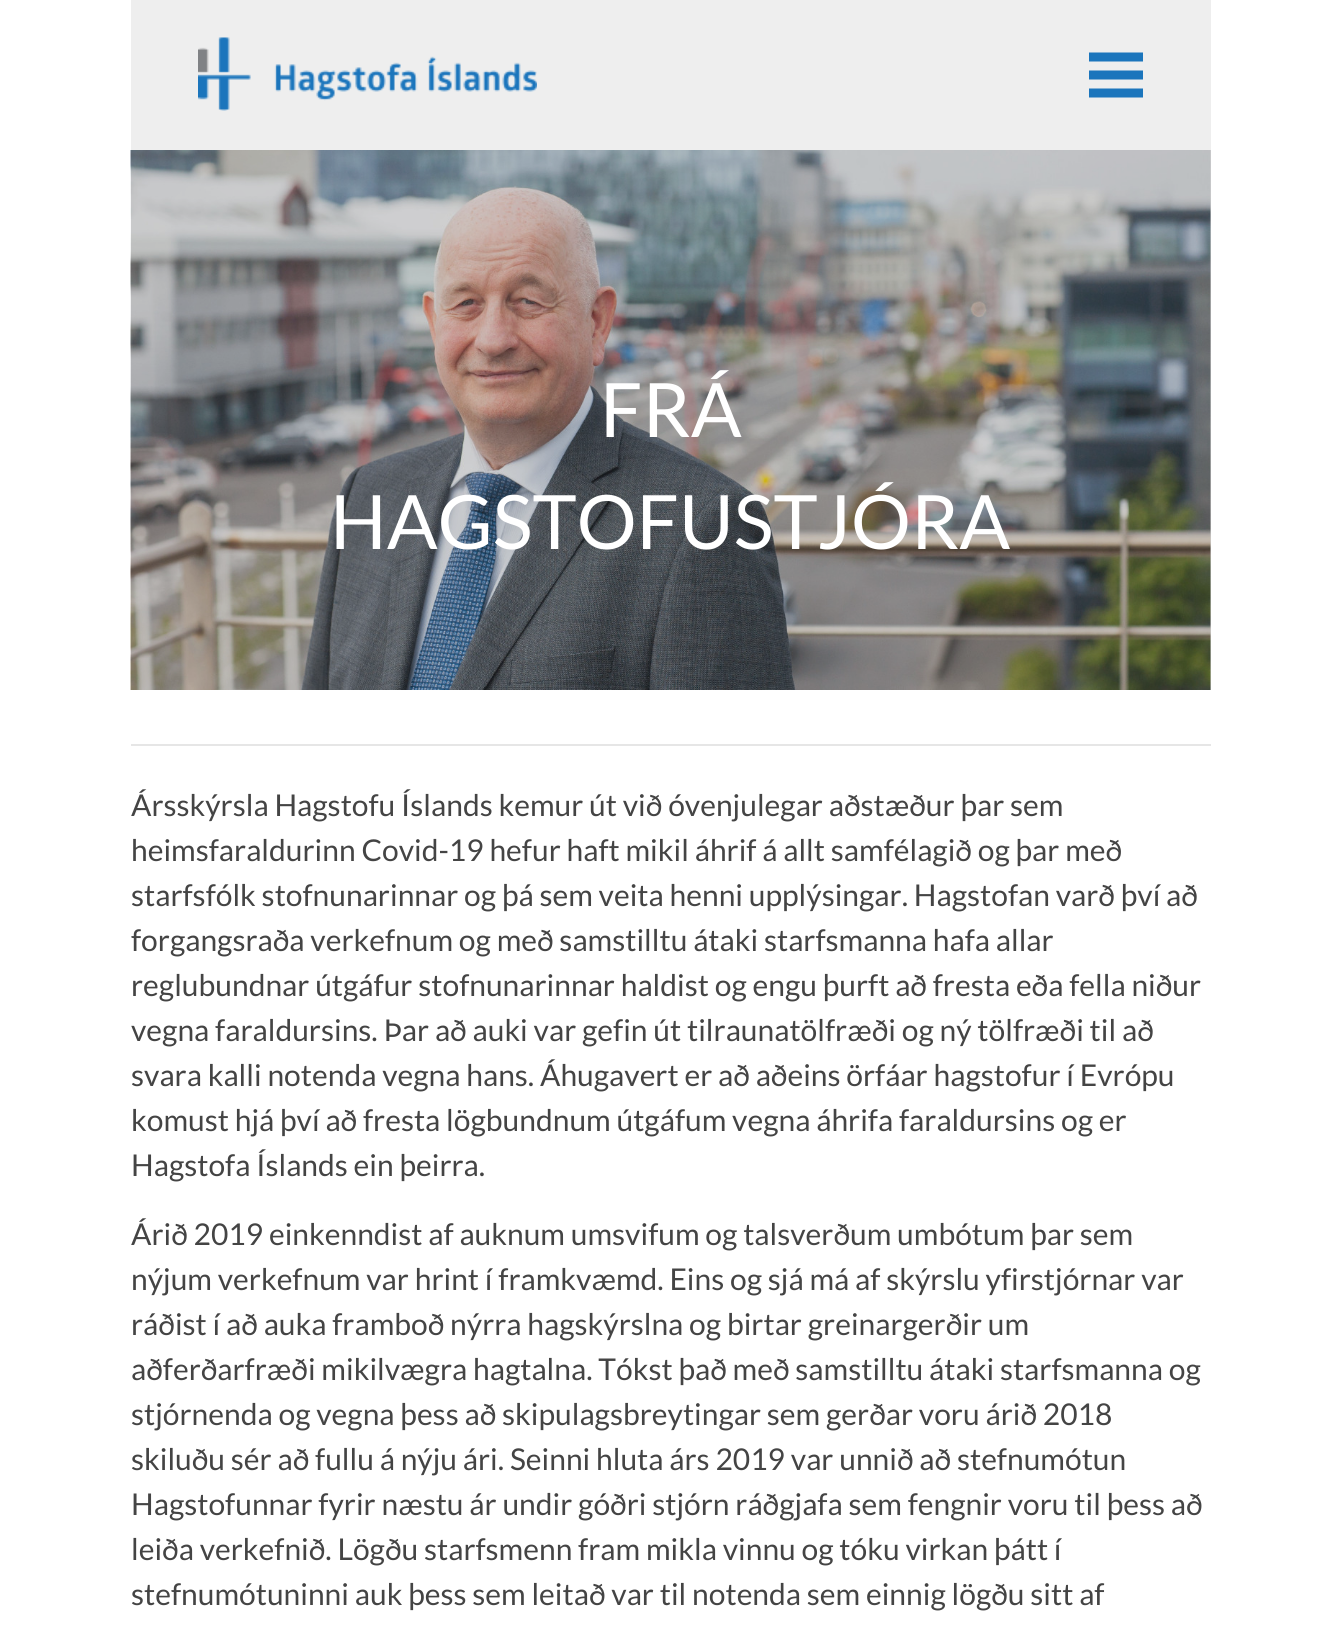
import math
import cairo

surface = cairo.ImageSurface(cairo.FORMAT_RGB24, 1341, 1628)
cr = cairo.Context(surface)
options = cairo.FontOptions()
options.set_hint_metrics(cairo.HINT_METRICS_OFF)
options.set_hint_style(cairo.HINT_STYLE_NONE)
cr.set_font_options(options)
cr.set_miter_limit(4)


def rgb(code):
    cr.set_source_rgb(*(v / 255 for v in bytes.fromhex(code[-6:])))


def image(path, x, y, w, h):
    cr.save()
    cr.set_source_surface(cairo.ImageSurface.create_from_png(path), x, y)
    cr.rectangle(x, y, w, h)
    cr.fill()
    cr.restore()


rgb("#ffffff")
cr.paint()
rgb("#d0d0d0")
cr.rectangle(1210, 150, 1, 540)
cr.fill()
rgb("#eeeeee")
cr.rectangle(131, 0, 1080, 150)
cr.fill()
image("img/1.png", 198, 37, 339, 74)
image("img/2.png", 1089, 52, 54, 46)
image("img/3.png", 130, 150, 1081, 540)
rgb("#e6e6e6")
cr.rectangle(131, 744, 1080, 2)
cr.fill()
cr.select_font_face("Lato")
cr.set_font_size(75)
rgb("#ffffff")
cr.move_to(600, 437)
cr.show_text("FRÁ")
cr.move_to(330, 549)
cr.show_text("HAGSTOFUSTJÓRA")
cr.set_font_size(30)
rgb("#444444")
for x, y, s in [
    (131, 816, "Ársskýrsla Hagstofu Íslands kemur út við óvenjulegar aðstæður þar sem"),
    (131, 861, "heimsfaraldurinn Covid-19 hefur haft mikil áhrif á allt samfélagið og þar með"),
    (131, 906, "starfsfólk stofnunarinnar og þá sem veita henni upplýsingar. Hagstofan varð því að"),
    (131, 951, "forgangsraða verkefnum og með samstilltu átaki starfsmanna hafa allar"),
    (131, 996, "reglubundnar útgáfur stofnunarinnar haldist og engu þurft að fresta eða fella niður"),
    (131, 1041, "vegna faraldursins. Þar að auki var gefin út tilraunatölfræði og ný tölfræði til að"),
    (131, 1086, "svara kalli notenda vegna hans. Áhugavert er að aðeins örfáar hagstofur í Evrópu"),
    (131, 1131, "komust hjá því að fresta lögbundnum útgáfum vegna áhrifa faraldursins og er"),
    (131, 1176, "Hagstofa Íslands ein þeirra."),
    (131, 1245, "Árið 2019 einkenndist af auknum umsvifum og talsverðum umbótum þar sem"),
    (131, 1290, "nýjum verkefnum var hrint í framkvæmd. Eins og sjá má af skýrslu yfirstjórnar var"),
    (131, 1335, "ráðist í að auka framboð nýrra hagskýrslna og birtar greinargerðir um"),
    (131, 1380, "aðferðarfræði mikilvægra hagtalna. Tókst það með samstilltu átaki starfsmanna og"),
    (131, 1425, "stjórnenda og vegna þess að skipulagsbreytingar sem gerðar voru árið 2018"),
    (131, 1470, "skiluðu sér að fullu á nýju ári. Seinni hluta árs 2019 var unnið að stefnumótun"),
    (131, 1515, "Hagstofunnar fyrir næstu ár undir góðri stjórn ráðgjafa sem fengnir voru til þess að"),
    (131, 1560, "leiða verkefnið. Lögðu starfsmenn fram mikla vinnu og tóku virkan þátt í"),
    (131, 1605, "stefnumótuninni auk þess sem leitað var til notenda sem einnig lögðu sitt af"),
]:
    cr.move_to(x, y)
    cr.show_text(s)
surface.write_to_png("page.png")
